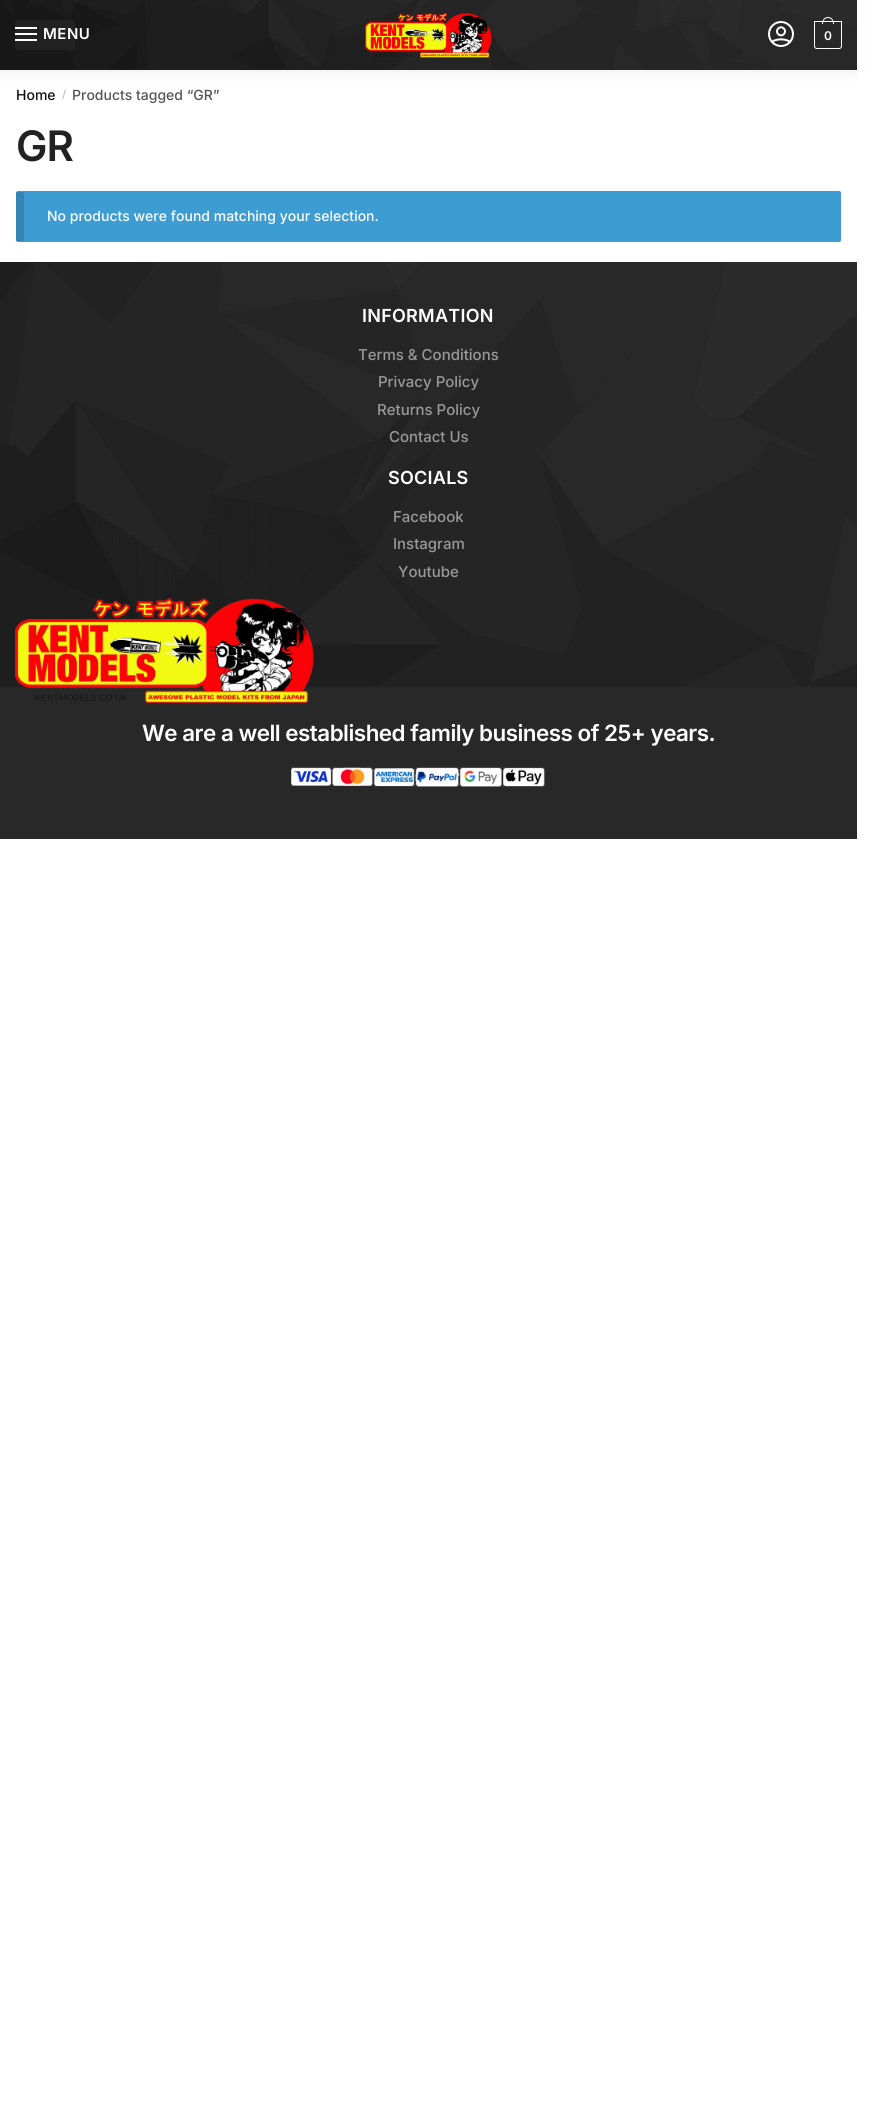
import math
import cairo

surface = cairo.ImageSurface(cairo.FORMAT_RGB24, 872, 2123)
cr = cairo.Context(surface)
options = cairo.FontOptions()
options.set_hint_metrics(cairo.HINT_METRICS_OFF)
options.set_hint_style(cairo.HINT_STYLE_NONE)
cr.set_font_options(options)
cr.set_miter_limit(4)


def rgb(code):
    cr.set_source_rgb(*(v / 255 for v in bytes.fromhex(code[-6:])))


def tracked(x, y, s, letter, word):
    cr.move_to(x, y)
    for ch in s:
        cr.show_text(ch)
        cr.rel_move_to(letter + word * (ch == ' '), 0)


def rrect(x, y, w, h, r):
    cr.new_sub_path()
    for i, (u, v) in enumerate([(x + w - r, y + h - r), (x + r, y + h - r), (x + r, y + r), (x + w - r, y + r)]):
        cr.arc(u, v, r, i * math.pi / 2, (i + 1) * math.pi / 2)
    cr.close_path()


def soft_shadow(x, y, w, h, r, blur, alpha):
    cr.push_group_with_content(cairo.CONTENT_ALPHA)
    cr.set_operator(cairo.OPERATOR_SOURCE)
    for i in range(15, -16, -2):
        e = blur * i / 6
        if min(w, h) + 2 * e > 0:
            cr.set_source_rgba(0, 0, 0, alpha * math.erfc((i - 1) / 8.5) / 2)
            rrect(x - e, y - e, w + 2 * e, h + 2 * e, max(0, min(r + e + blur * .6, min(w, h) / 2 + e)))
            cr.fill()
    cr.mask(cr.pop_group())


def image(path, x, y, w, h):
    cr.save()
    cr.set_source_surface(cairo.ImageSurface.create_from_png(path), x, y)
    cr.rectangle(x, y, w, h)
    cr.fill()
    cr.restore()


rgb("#ffffff")
cr.paint()
rgb("#000000")
soft_shadow(0, 1, 857, 70, 0, 7.5, 0.08)
image("img/1.png", 0, 0, 857, 70)
rgb("#222222")
rrect(15, 20, 60, 30, 4)
cr.fill()
for x, y, w, h, color in [
    (15, 27, 22, 2, "#ffffff"),
    (15, 33, 22, 2, "#ffffff"),
    (15, 39, 22, 2, "#ffffff"),
]:
    rgb(color)
    cr.rectangle(x, y, w, h)
    cr.fill()
image("img/2.png", 365, 13, 127, 45)
image("img/3.png", 768, 21, 26, 26)
cr.new_path()
cr.move_to(814.5, 21.5)
cr.line_to(841.5, 21.5)
cr.line_to(841.5, 46)
cr.curve_to(841.5, 47.5, 840.5, 48.5, 839, 48.5)
cr.line_to(817, 48.5)
cr.curve_to(815.5, 48.5, 814.5, 47.5, 814.5, 46)
cr.close_path()
cr.set_line_width(1)
cr.stroke()
cr.set_fill_rule(cairo.FILL_RULE_EVEN_ODD)
cr.new_path()
cr.move_to(828, 17)
cr.curve_to(832, 17, 834, 20.5, 834, 24)
cr.line_to(822, 24)
cr.curve_to(822, 20.5, 824, 17, 828, 17)
cr.close_path()
cr.move_to(828, 18)
cr.curve_to(831.5, 18, 833, 21, 833, 24)
cr.line_to(823, 24)
cr.curve_to(823, 21, 824.5, 18, 828, 18)
cr.close_path()
cr.fill()
cr.rectangle(857, 0, 9, 76)
cr.fill()
rgb("#3d9cd2")
rrect(16, 191, 825, 51, 2)
cr.fill()
cr.set_source_rgba(0, 0, 0, 0.15)
cr.rectangle(16, 192, 8, 49)
cr.fill()
image("img/4.png", 0, 262, 857, 425)
rgb("#282828")
cr.rectangle(0, 687, 857, 152)
cr.fill()
image("img/5.png", 15, 598, 299, 106)
image("img/6.png", 291, 767, 254, 20)
cr.select_font_face("Inter SemiBold")
cr.set_font_size(15)
rgb("#ffffff")
tracked(43, 39, "MENU", 0.5, 0)
cr.set_font_size(12)
tracked(824, 40, "0", -1, 0)
cr.select_font_face("Inter Medium")
cr.set_font_size(14)
rgb("#111111")
cr.move_to(16, 100)
cr.show_text("Home")
cr.set_font_size(11)
rgb("#bbbbbb")
cr.move_to(62, 98)
cr.show_text("/")
cr.set_font_size(14)
rgb("#555555")
cr.move_to(72, 100)
cr.show_text("Products tagged “GR”")
cr.select_font_face("Inter SemiBold")
cr.set_font_size(42)
rgb("#222222")
tracked(16, 161, "GR", -1, 0)
cr.select_font_face("Inter Medium")
cr.set_font_size(14)
rgb("#ffffff")
cr.move_to(47, 221)
cr.show_text("No products were found matching your selection.")
cr.select_font_face("Inter SemiBold")
cr.set_font_size(18)
tracked(362, 322, "INFORMATION", 0.25, 0)
cr.select_font_face("Inter Medium")
cr.set_font_size(15)
rgb("#999999")
for x, y, s in [
    (358, 360, "Terms & Conditions"),
    (378, 387, "Privacy Policy"),
    (377, 415, "Returns Policy"),
    (389, 442, "Contact Us"),
]:
    cr.move_to(x, y)
    cr.show_text(s)
cr.select_font_face("Inter SemiBold")
cr.set_font_size(18)
rgb("#ffffff")
tracked(388, 484, "SOCIALS", 0.25, 0)
cr.select_font_face("Inter Medium")
cr.set_font_size(15)
rgb("#999999")
for x, y, s in [
    (393, 522, "Facebook"),
    (393, 549, "Instagram"),
    (398, 577, "Youtube"),
]:
    cr.move_to(x, y)
    cr.show_text(s)
cr.select_font_face("Inter SemiBold")
cr.set_font_size(22.4)
rgb("#ffffff")
tracked(142, 741, "We are a well established family business of 25+ years.", -0.5, 0)
surface.write_to_png("page.png")
